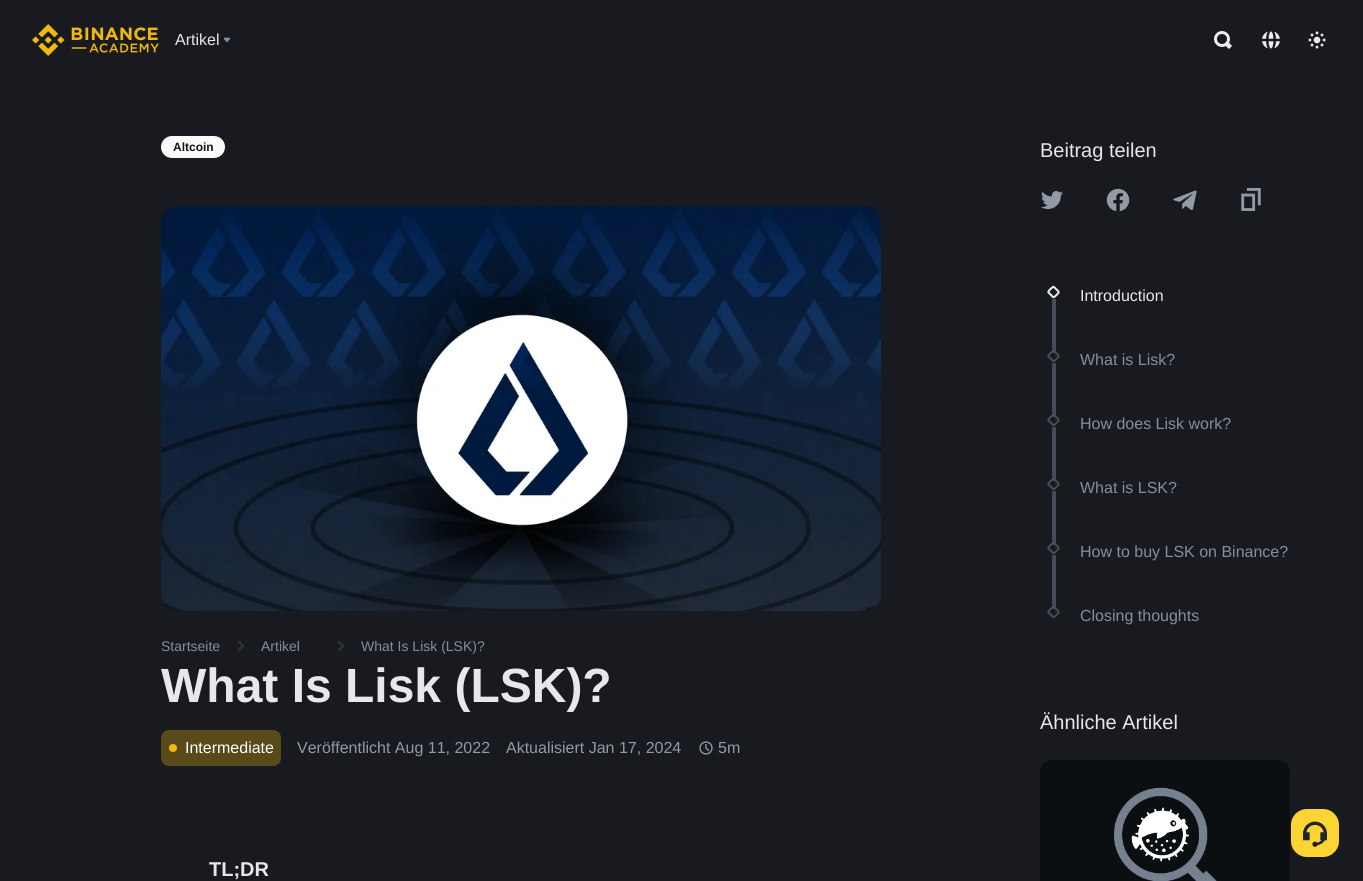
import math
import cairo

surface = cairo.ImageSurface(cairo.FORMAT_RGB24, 1363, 881)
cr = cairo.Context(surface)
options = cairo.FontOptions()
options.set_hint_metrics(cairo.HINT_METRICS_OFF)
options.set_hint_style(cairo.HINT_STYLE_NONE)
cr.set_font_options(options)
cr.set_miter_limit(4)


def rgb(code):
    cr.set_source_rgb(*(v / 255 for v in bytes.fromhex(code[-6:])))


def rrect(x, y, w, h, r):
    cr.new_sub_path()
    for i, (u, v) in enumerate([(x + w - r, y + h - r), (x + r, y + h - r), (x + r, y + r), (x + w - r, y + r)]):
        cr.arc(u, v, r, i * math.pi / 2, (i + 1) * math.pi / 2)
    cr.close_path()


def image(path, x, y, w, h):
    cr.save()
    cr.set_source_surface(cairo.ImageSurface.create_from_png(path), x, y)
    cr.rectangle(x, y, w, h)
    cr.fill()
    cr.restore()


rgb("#181a20")
cr.paint()
image("img/1.png", 32, 24, 127, 32)
image("img/2.png", 224, 37, 6, 6)
image("img/3.png", 1214, 31, 18, 18)
image("img/4.png", 1262, 31, 18, 18)
image("img/5.png", 1308, 31, 18, 18)
rgb("#fafafa")
rrect(161, 136, 64, 22, 11)
cr.fill()
image("img/6.png", 161, 206, 720, 405)
image("img/7.png", 237, 640, 8, 12)
image("img/7.png", 337, 640, 8, 12)
rgb("#594a1a")
rrect(161, 730, 120, 36, 8)
cr.fill()
rgb("#f0b90b")
cr.arc(173, 748, 4, 0, 2 * math.pi)
cr.fill()
image("img/8.png", 699, 741, 14, 14)
image("img/9.png", 1041, 191, 22, 18)
image("img/10.png", 1106, 188, 24, 24)
image("img/11.png", 1173, 190, 24, 20)
image("img/12.png", 1241, 188, 20, 23)
cr.new_path()
cr.move_to(1054, 287)
cr.line_to(1057.5, 290.5)
cr.curve_to(1060, 292.5, 1058, 293, 1056.5, 295)
cr.curve_to(1054.5, 296.5, 1054, 298.5, 1052, 296)
cr.line_to(1048.5, 292.5)
cr.curve_to(1047.5, 291.5, 1050, 290, 1050.5, 289)
cr.curve_to(1051.5, 288.5, 1053, 286, 1054, 287)
cr.close_path()
rgb("#eaecef")
cr.stroke()
rgb("#474d57")
rrect(1052, 299, 4, 54, 1)
cr.fill()
cr.new_path()
cr.move_to(1054, 351)
cr.line_to(1057.5, 354.5)
cr.curve_to(1060, 356.5, 1058, 357, 1056.5, 359)
cr.curve_to(1054.5, 360.5, 1054, 362.5, 1052, 360)
cr.line_to(1048.5, 356.5)
cr.curve_to(1047.5, 355.5, 1050, 354, 1050.5, 353)
cr.curve_to(1051.5, 352.5, 1053, 350, 1054, 351)
cr.close_path()
cr.stroke()
rrect(1052, 363, 4, 54, 1)
cr.fill()
cr.new_path()
cr.move_to(1054, 415)
cr.line_to(1057.5, 418.5)
cr.curve_to(1060, 420.5, 1058, 421, 1056.5, 423)
cr.curve_to(1054.5, 424.5, 1054, 426.5, 1052, 424)
cr.line_to(1048.5, 420.5)
cr.curve_to(1047.5, 419.5, 1050, 418, 1050.5, 417)
cr.curve_to(1051.5, 416.5, 1053, 414, 1054, 415)
cr.close_path()
cr.stroke()
rrect(1052, 427, 4, 54, 1)
cr.fill()
cr.new_path()
cr.move_to(1054, 479)
cr.line_to(1057.5, 482.5)
cr.curve_to(1060, 484.5, 1058, 485, 1056.5, 487)
cr.curve_to(1054.5, 488.5, 1054, 490.5, 1052, 488)
cr.line_to(1048.5, 484.5)
cr.curve_to(1047.5, 483.5, 1050, 482, 1050.5, 481)
cr.curve_to(1051.5, 480.5, 1053, 478, 1054, 479)
cr.close_path()
cr.stroke()
rrect(1052, 491, 4, 54, 1)
cr.fill()
cr.new_path()
cr.move_to(1054, 543)
cr.line_to(1057.5, 546.5)
cr.curve_to(1060, 548.5, 1058, 549, 1056.5, 551)
cr.curve_to(1054.5, 552.5, 1054, 554.5, 1052, 552)
cr.line_to(1048.5, 548.5)
cr.curve_to(1047.5, 547.5, 1050, 546, 1050.5, 545)
cr.curve_to(1051.5, 544.5, 1053, 542, 1054, 543)
cr.close_path()
cr.stroke()
rrect(1052, 555, 4, 54, 1)
cr.fill()
cr.new_path()
cr.move_to(1054, 607)
cr.line_to(1057.5, 610.5)
cr.curve_to(1060, 612.5, 1058, 613, 1056.5, 615)
cr.curve_to(1054.5, 616.5, 1054, 618.5, 1052, 616)
cr.line_to(1048.5, 612.5)
cr.curve_to(1047.5, 611.5, 1050, 610, 1050.5, 609)
cr.curve_to(1051.5, 608.5, 1053, 606, 1054, 607)
cr.close_path()
cr.stroke()
image("img/13.png", 1040, 760, 250, 121)
rgb("#fcd535")
rrect(1291, 809, 48, 48, 16)
cr.fill()
image("img/14.png", 1303, 821, 24, 26)
cr.select_font_face("Liberation Sans")
cr.set_font_size(16)
rgb("#e6e8ea")
cr.move_to(175, 45)
cr.show_text("Artikel")
cr.select_font_face("Liberation Sans", cairo.FONT_SLANT_NORMAL, cairo.FONT_WEIGHT_BOLD)
cr.set_font_size(12)
rgb("#14151a")
cr.move_to(173, 151)
cr.show_text("Altcoin")
cr.select_font_face("Liberation Sans")
cr.set_font_size(14)
rgb("#848e9c")
for x, y, s in [
    (161, 651, "Startseite"),
    (261, 651, "Artikel"),
    (361, 651, "What Is Lisk (LSK)?"),
]:
    cr.move_to(x, y)
    cr.show_text(s)
cr.select_font_face("Liberation Sans", cairo.FONT_SLANT_NORMAL, cairo.FONT_WEIGHT_BOLD)
cr.set_font_size(48)
rgb("#e6e8ea")
cr.move_to(161, 702)
cr.show_text("What Is Lisk (LSK)?")
cr.select_font_face("Liberation Sans")
cr.set_font_size(16)
rgb("#ffffff")
cr.move_to(185, 753)
cr.show_text("Intermediate")
rgb("#929aa5")
for x, y, s in [
    (297, 753, "Veröffentlicht Aug 11, 2022"),
    (506, 753, "Aktualisiert Jan 17, 2024"),
    (718, 753, "5m"),
]:
    cr.move_to(x, y)
    cr.show_text(s)
cr.select_font_face("Liberation Sans", cairo.FONT_SLANT_NORMAL, cairo.FONT_WEIGHT_BOLD)
cr.set_font_size(20)
rgb("#e6e8ea")
cr.move_to(209, 876)
cr.show_text("TL;DR")
cr.select_font_face("Liberation Sans")
cr.move_to(1040, 157)
cr.show_text("Beitrag teilen")
cr.set_font_size(16)
cr.move_to(1080, 301)
cr.show_text("Introduction")
rgb("#848e9c")
for x, y, s in [
    (1080, 365, "What is Lisk?"),
    (1080, 429, "How does Lisk work?"),
    (1080, 493, "What is LSK?"),
    (1080, 557, "How to buy LSK on Binance?"),
    (1080, 621, "Closing thoughts"),
]:
    cr.move_to(x, y)
    cr.show_text(s)
cr.set_font_size(20)
rgb("#e6e8ea")
cr.move_to(1040, 729)
cr.show_text("Ähnliche Artikel")
surface.write_to_png("page.png")
